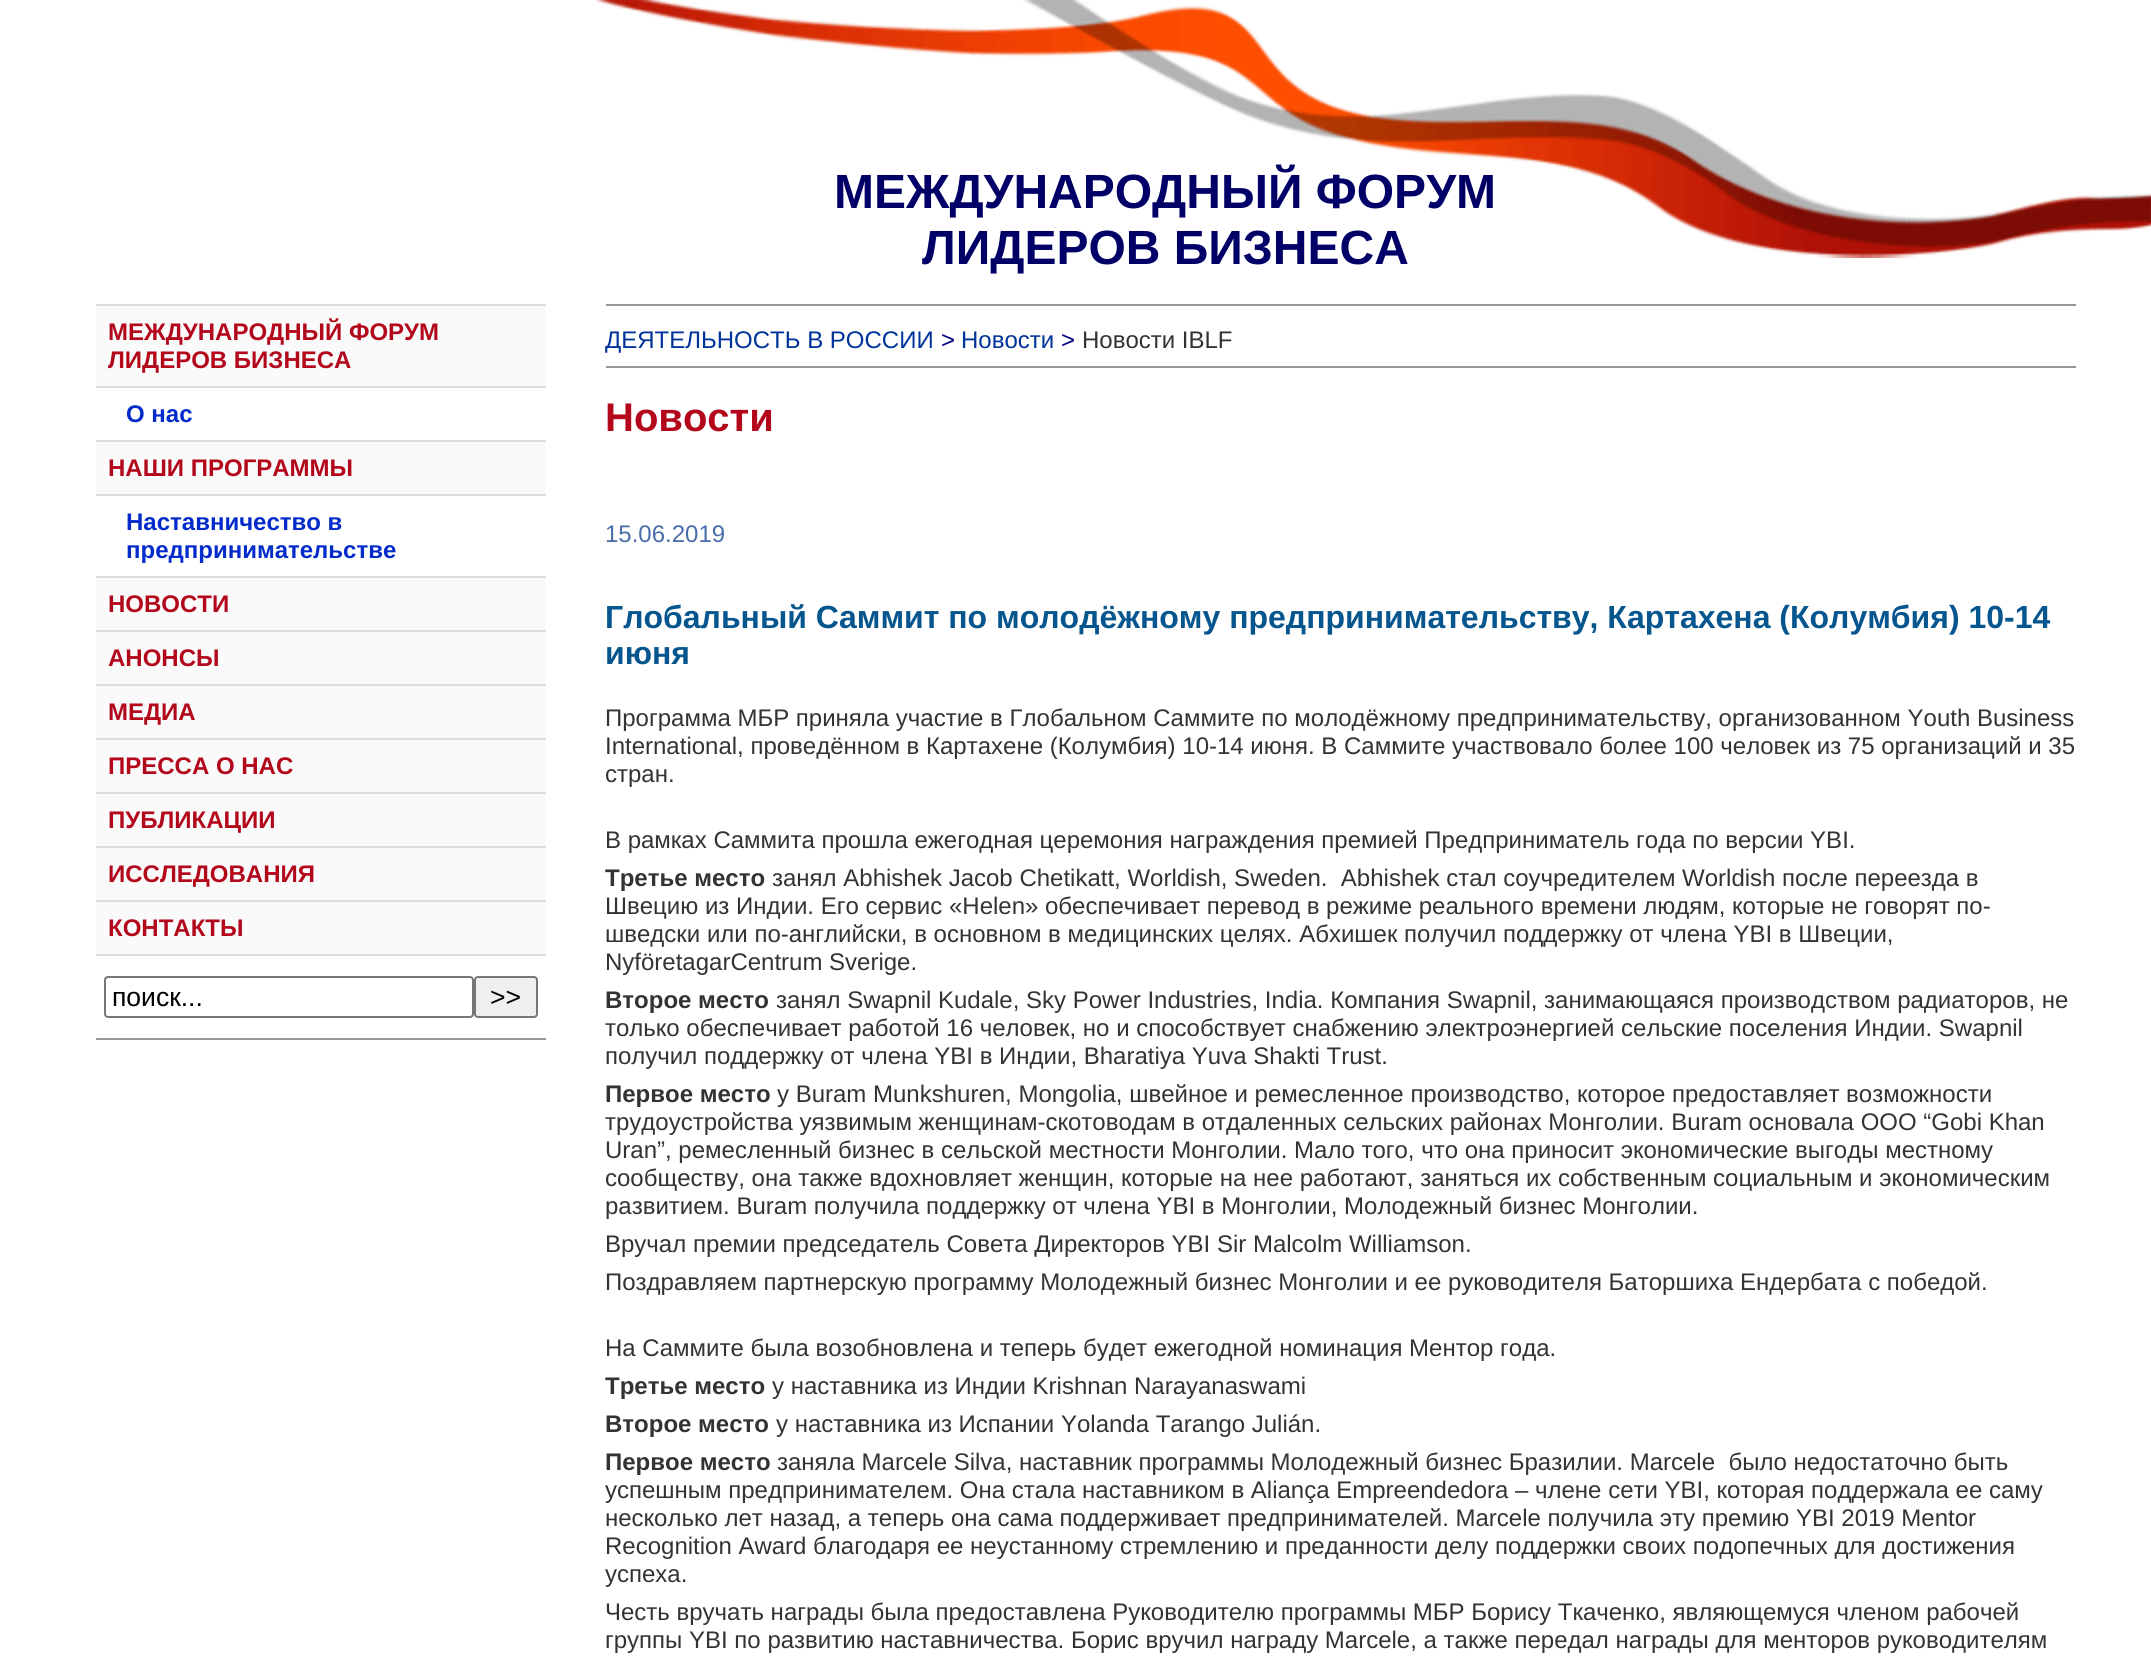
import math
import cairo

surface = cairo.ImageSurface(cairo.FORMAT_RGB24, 2151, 1671)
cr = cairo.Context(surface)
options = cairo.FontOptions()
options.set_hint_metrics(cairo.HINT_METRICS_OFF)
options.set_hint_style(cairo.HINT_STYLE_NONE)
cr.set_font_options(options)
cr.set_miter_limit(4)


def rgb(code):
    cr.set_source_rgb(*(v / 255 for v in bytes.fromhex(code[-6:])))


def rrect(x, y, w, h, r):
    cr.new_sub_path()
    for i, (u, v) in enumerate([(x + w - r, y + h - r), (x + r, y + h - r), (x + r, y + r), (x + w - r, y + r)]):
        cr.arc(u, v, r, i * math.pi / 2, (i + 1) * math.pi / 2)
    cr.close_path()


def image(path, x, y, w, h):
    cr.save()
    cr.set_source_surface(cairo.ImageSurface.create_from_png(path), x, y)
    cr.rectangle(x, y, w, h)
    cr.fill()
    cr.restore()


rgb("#ffffff")
cr.paint()
image("img/1.png", 595, 0, 1556, 258)
for x, y, w, h, color in [
    (96, 306, 450, 80, "#fafafa"),
    (96, 304, 450, 2, "#dddddd"),
    (96, 386, 450, 2, "#dddddd"),
    (96, 442, 450, 52, "#fafafa"),
    (96, 440, 450, 2, "#dddddd"),
    (96, 494, 450, 2, "#dddddd"),
    (96, 578, 450, 52, "#fafafa"),
    (96, 576, 450, 2, "#dddddd"),
    (96, 630, 450, 2, "#dddddd"),
    (96, 632, 450, 52, "#fafafa"),
    (96, 684, 450, 2, "#dddddd"),
    (96, 686, 450, 52, "#fafafa"),
    (96, 738, 450, 2, "#dddddd"),
    (96, 740, 450, 52, "#fafafa"),
    (96, 792, 450, 2, "#dddddd"),
    (96, 794, 450, 52, "#fafafa"),
    (96, 846, 450, 2, "#dddddd"),
    (96, 848, 450, 52, "#fafafa"),
    (96, 900, 450, 2, "#dddddd"),
    (96, 902, 450, 52, "#fafafa"),
    (96, 954, 450, 2, "#dddddd"),
    (96, 1038, 450, 2, "#9b9599"),
]:
    rgb(color)
    cr.rectangle(x, y, w, h)
    cr.fill()
rrect(105, 977, 368, 40, 3)
rgb("#767676")
cr.stroke()
rgb("#efefef")
rrect(475, 977, 62, 40, 3)
cr.fill_preserve()
rgb("#767676")
cr.stroke()
rgb("#9b9599")
cr.rectangle(606, 304, 1470, 2)
cr.fill()
cr.rectangle(606, 366, 1470, 2)
cr.fill()
cr.select_font_face("Liberation Sans", cairo.FONT_SLANT_NORMAL, cairo.FONT_WEIGHT_BOLD)
cr.set_font_size(48)
rgb("#000066")
cr.move_to(834, 208)
cr.show_text("МЕЖДУНАРОДНЫЙ ФОРУМ")
cr.move_to(922, 264)
cr.show_text("ЛИДЕРОВ БИЗНЕСА")
cr.set_font_size(24)
rgb("#b3071b")
cr.move_to(108, 340)
cr.show_text("МЕЖДУНАРОДНЫЙ ФОРУМ")
cr.move_to(108, 368)
cr.show_text("ЛИДЕРОВ БИЗНЕСА")
rgb("#032bcb")
cr.move_to(126, 422)
cr.show_text("О нас")
rgb("#b3071b")
cr.move_to(108, 476)
cr.show_text("НАШИ ПРОГРАММЫ")
rgb("#032bcb")
cr.move_to(126, 530)
cr.show_text("Наставничество в")
cr.move_to(126, 558)
cr.show_text("предпринимательстве")
rgb("#b3071b")
for x, y, s in [
    (108, 612, "НОВОСТИ"),
    (108, 666, "АНОНСЫ"),
    (108, 720, "МЕДИА"),
    (108, 774, "ПРЕССА О НАС"),
    (108, 828, "ПУБЛИКАЦИИ"),
    (108, 882, "ИССЛЕДОВАНИЯ"),
    (108, 936, "КОНТАКТЫ"),
]:
    cr.move_to(x, y)
    cr.show_text(s)
cr.select_font_face("Liberation Sans")
cr.set_font_size(26.5)
rgb("#000000")
cr.move_to(112, 1006)
cr.show_text("поиск...")
cr.move_to(490, 1006)
cr.show_text(">>")
cr.set_font_size(24)
rgb("#003399")
cr.move_to(605, 348)
cr.show_text("ДЕЯТЕЛЬНОСТЬ В РОССИИ")
rgb("#000080")
cr.move_to(941, 348)
cr.show_text(">")
rgb("#003399")
cr.move_to(961, 348)
cr.show_text("Новости")
rgb("#000080")
cr.move_to(1061, 348)
cr.show_text(">")
rgb("#333333")
cr.move_to(1082, 348)
cr.show_text("Новости IBLF")
cr.select_font_face("Liberation Sans", cairo.FONT_SLANT_NORMAL, cairo.FONT_WEIGHT_BOLD)
cr.set_font_size(40)
rgb("#b3071b")
cr.move_to(605, 431)
cr.show_text("Новости")
cr.select_font_face("Liberation Sans")
cr.set_font_size(24)
rgb("#486daa")
cr.move_to(605, 542)
cr.show_text("15.06.2019")
cr.select_font_face("Liberation Sans", cairo.FONT_SLANT_NORMAL, cairo.FONT_WEIGHT_BOLD)
cr.set_font_size(32)
rgb("#05558e")
cr.move_to(605, 628)
cr.show_text("Глобальный Саммит по молодёжному предпринимательству, Картахена (Колумбия) 10-14")
cr.move_to(605, 664)
cr.show_text("июня")
cr.select_font_face("Liberation Sans")
cr.set_font_size(24)
rgb("#333333")
for x, y, s in [
    (605, 726, "Программа МБР приняла участие в Глобальном Саммите по молодёжному предпринимательству, организованном Youth Business"),
    (605, 754, "International, проведённом в Картахене (Колумбия) 10-14 июня. В Саммите участвовало более 100 человек из 75 организаций и 35"),
    (605, 782, "стран."),
    (605, 848, "В рамках Саммита прошла ежегодная церемония награждения премией Предприниматель года по версии YBI."),
]:
    cr.move_to(x, y)
    cr.show_text(s)
cr.select_font_face("Liberation Sans", cairo.FONT_SLANT_NORMAL, cairo.FONT_WEIGHT_BOLD)
cr.move_to(605, 886)
cr.show_text("Третье место")
cr.select_font_face("Liberation Sans")
for x, y, s in [
    (772, 886, "занял Abhishek Jacob Chetikatt, Worldish, Sweden.  Abhishek стал соучредителем Worldish после переезда в"),
    (605, 914, "Швецию из Индии. Его сервис «Helen» обеспечивает перевод в режиме реального времени людям, которые не говорят по-"),
    (605, 942, "шведски или по-английски, в основном в медицинских целях. Абхишек получил поддержку от члена YBI в Швеции,"),
    (605, 970, "NyföretagarCentrum Sverige."),
]:
    cr.move_to(x, y)
    cr.show_text(s)
cr.select_font_face("Liberation Sans", cairo.FONT_SLANT_NORMAL, cairo.FONT_WEIGHT_BOLD)
cr.move_to(605, 1008)
cr.show_text("Второе место")
cr.select_font_face("Liberation Sans")
for x, y, s in [
    (776, 1008, "занял Swapnil Kudale, Sky Power Industries, India. Компания Swapnil, занимающаяся производством радиаторов, не"),
    (605, 1036, "только обеспечивает работой 16 человек, но и способствует снабжению электроэнергией сельские поселения Индии. Swapnil"),
    (605, 1064, "получил поддержку от члена YBI в Индии, Bharatiya Yuva Shakti Trust."),
]:
    cr.move_to(x, y)
    cr.show_text(s)
cr.select_font_face("Liberation Sans", cairo.FONT_SLANT_NORMAL, cairo.FONT_WEIGHT_BOLD)
cr.move_to(605, 1102)
cr.show_text("Первое место")
cr.select_font_face("Liberation Sans")
for x, y, s in [
    (777, 1102, "у Buram Munkshuren, Mongolia, швейное и ремесленное производство, которое предоставляет возможности"),
    (605, 1130, "трудоустройства уязвимым женщинам-скотоводам в отдаленных сельских районах Монголии. Buram основала ООО “Gobi Khan"),
    (605, 1158, "Uran”, ремесленный бизнес в сельской местности Монголии. Мало того, что она приносит экономические выгоды местному"),
    (605, 1186, "сообществу, она также вдохновляет женщин, которые на нее работают, заняться их собственным социальным и экономическим"),
    (605, 1214, "развитием. Buram получила поддержку от члена YBI в Монголии, Молодежный бизнес Монголии."),
    (605, 1252, "Вручал премии председатель Совета Директоров YBI Sir Malcolm Williamson."),
    (605, 1290, "Поздравляем партнерскую программу Молодежный бизнес Монголии и ее руководителя Баторшиха Ендербата с победой."),
    (605, 1356, "На Саммите была возобновлена и теперь будет ежегодной номинация Ментор года."),
]:
    cr.move_to(x, y)
    cr.show_text(s)
cr.select_font_face("Liberation Sans", cairo.FONT_SLANT_NORMAL, cairo.FONT_WEIGHT_BOLD)
cr.move_to(605, 1394)
cr.show_text("Третье место")
cr.select_font_face("Liberation Sans")
cr.move_to(772, 1394)
cr.show_text("у наставника из Индии Krishnan Narayanaswami")
cr.select_font_face("Liberation Sans", cairo.FONT_SLANT_NORMAL, cairo.FONT_WEIGHT_BOLD)
cr.move_to(605, 1432)
cr.show_text("Второе место")
cr.select_font_face("Liberation Sans")
cr.move_to(776, 1432)
cr.show_text("у наставника из Испании Yolanda Tarango Julián.")
cr.select_font_face("Liberation Sans", cairo.FONT_SLANT_NORMAL, cairo.FONT_WEIGHT_BOLD)
cr.move_to(605, 1470)
cr.show_text("Первое место")
cr.select_font_face("Liberation Sans")
for x, y, s in [
    (777, 1470, "заняла Marcele Silva, наставник программы Молодежный бизнес Бразилии. Marcele  было недостаточно быть"),
    (605, 1498, "успешным предпринимателем. Она стала наставником в Aliança Empreendedora – члене сети YBI, которая поддержала ее саму"),
    (605, 1526, "несколько лет назад, а теперь она сама поддерживает предпринимателей. Marcele получила эту премию YBI 2019 Mentor"),
    (605, 1554, "Recognition Award благодаря ее неустанному стремлению и преданности делу поддержки своих подопечных для достижения"),
    (605, 1582, "успеха."),
    (605, 1620, "Честь вручать награды была предоставлена Руководителю программы МБР Борису Ткаченко, являющемуся членом рабочей"),
    (605, 1648, "группы YBI по развитию наставничества. Борис вручил награду Marcele, а также передал награды для менторов руководителям"),
]:
    cr.move_to(x, y)
    cr.show_text(s)
surface.write_to_png("page.png")
